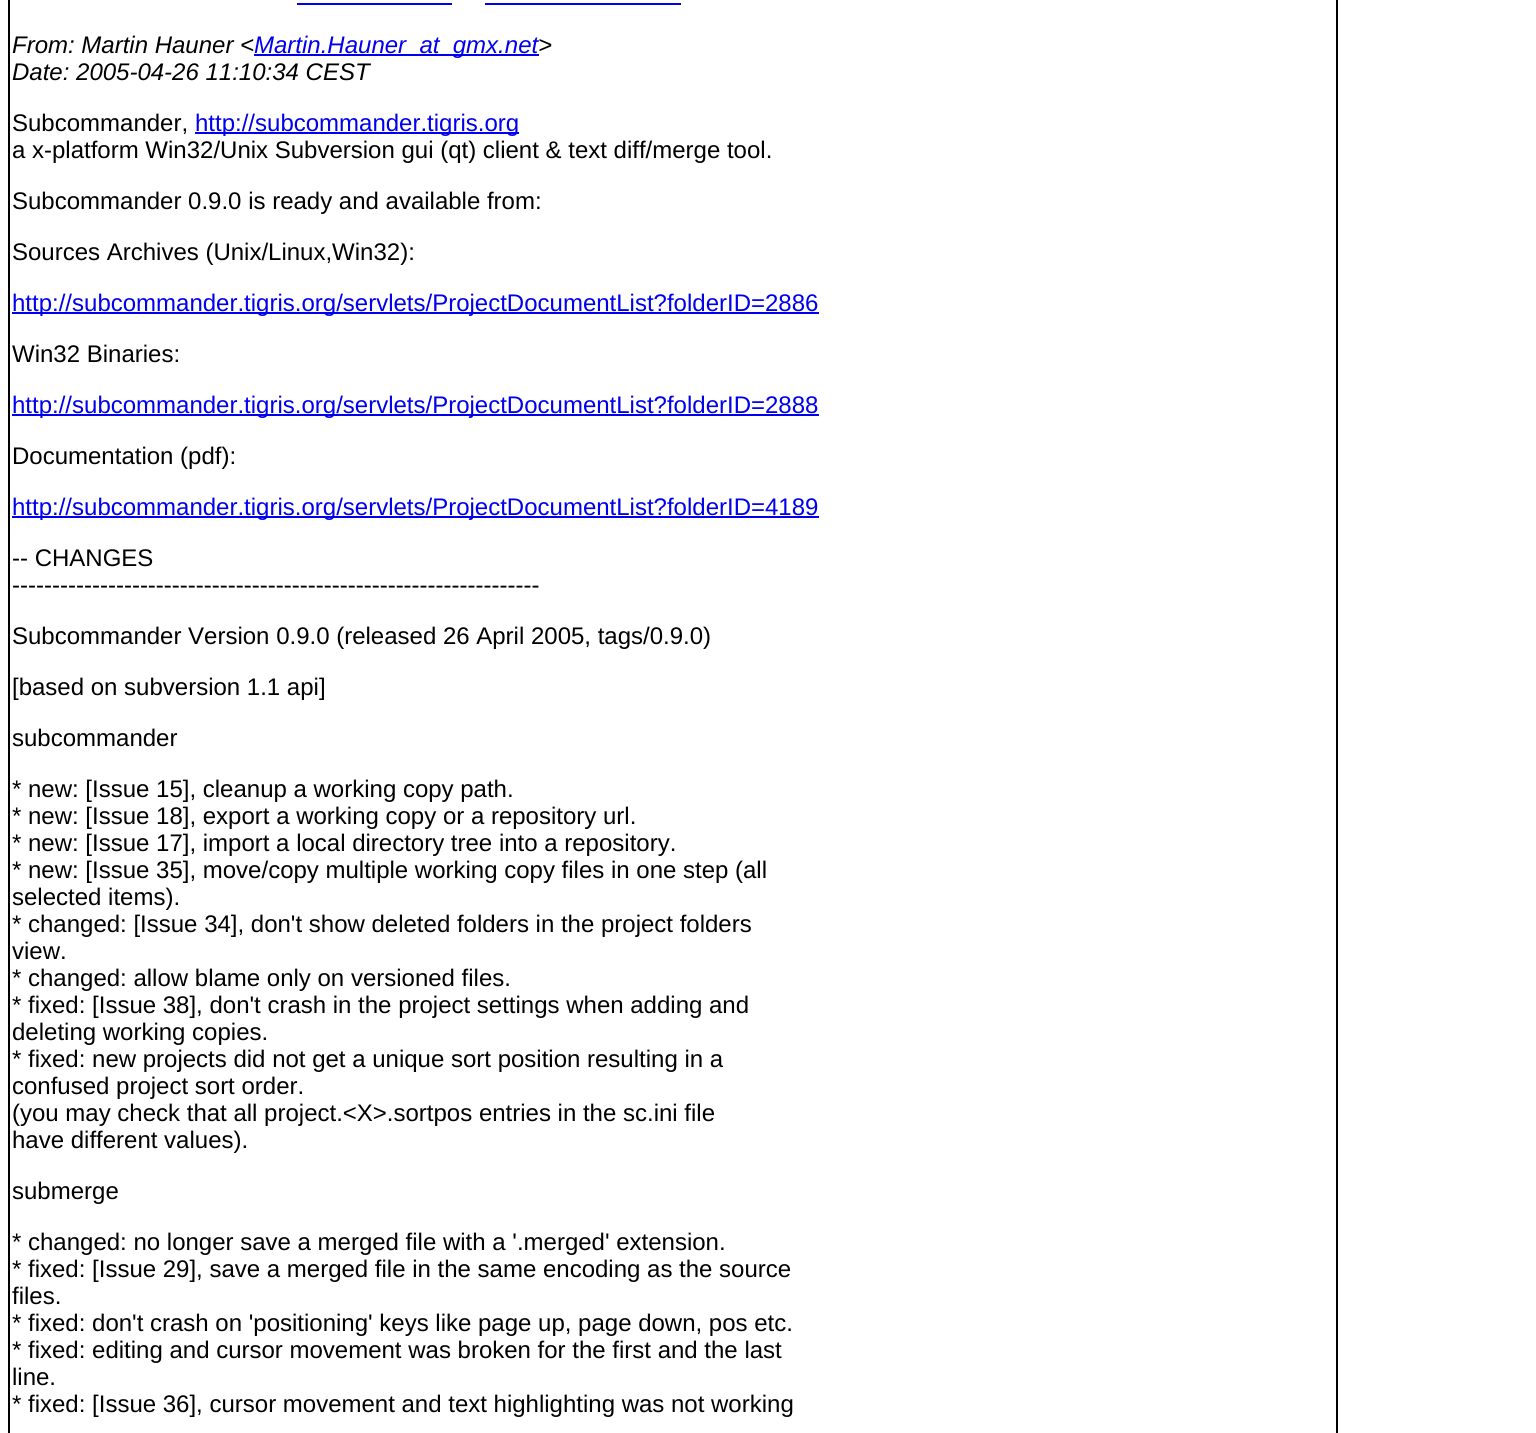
import math
import cairo

surface = cairo.ImageSurface(cairo.FORMAT_RGB24, 1536, 1433)
cr = cairo.Context(surface)
options = cairo.FontOptions()
options.set_hint_metrics(cairo.HINT_METRICS_OFF)
options.set_hint_style(cairo.HINT_STYLE_NONE)
cr.set_font_options(options)
cr.set_miter_limit(4)


def rgb(code):
    cr.set_source_rgb(*(v / 255 for v in bytes.fromhex(code[-6:])))


rgb("#ffffff")
cr.paint()
cr.rectangle(9, -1, 1328, 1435)
rgb("#000000")
cr.stroke()
for x, y, w, h, color in [
    (297, 3, 155, 2, "#0000ee"),
    (485, 3, 196, 2, "#0000ee"),
    (254, 54, 285, 2, "#0000ee"),
    (195, 132, 324, 2, "#0000ee"),
    (12, 312, 807, 2, "#0000ee"),
    (12, 414, 807, 2, "#0000ee"),
    (12, 516, 807, 2, "#0000ee"),
]:
    rgb(color)
    cr.rectangle(x, y, w, h)
    cr.fill()
cr.select_font_face("Liberation Sans", cairo.FONT_SLANT_ITALIC)
cr.set_font_size(24)
rgb("#000000")
cr.move_to(12, 53)
cr.show_text("From: Martin Hauner <")
rgb("#0000ee")
cr.move_to(254, 53)
cr.show_text("Martin.Hauner_at_gmx.net")
rgb("#000000")
cr.move_to(538, 53)
cr.show_text(">")
cr.move_to(12, 80)
cr.show_text("Date: 2005-04-26 11:10:34 CEST")
cr.select_font_face("Liberation Sans")
cr.move_to(12, 131)
cr.show_text("Subcommander,")
rgb("#0000ee")
cr.move_to(195, 131)
cr.show_text("http://subcommander.tigris.org")
rgb("#000000")
for x, y, s in [
    (12, 158, "a x-platform Win32/Unix Subversion gui (qt) client & text diff/merge tool."),
    (12, 209, "Subcommander 0.9.0 is ready and available from:"),
    (12, 260, "Sources Archives (Unix/Linux,Win32):"),
]:
    cr.move_to(x, y)
    cr.show_text(s)
rgb("#0000ee")
cr.move_to(12, 311)
cr.show_text("http://subcommander.tigris.org/servlets/ProjectDocumentList?folderID=2886")
rgb("#000000")
cr.move_to(12, 362)
cr.show_text("Win32 Binaries:")
rgb("#0000ee")
cr.move_to(12, 413)
cr.show_text("http://subcommander.tigris.org/servlets/ProjectDocumentList?folderID=2888")
rgb("#000000")
cr.move_to(12, 464)
cr.show_text("Documentation (pdf):")
rgb("#0000ee")
cr.move_to(12, 515)
cr.show_text("http://subcommander.tigris.org/servlets/ProjectDocumentList?folderID=4189")
rgb("#000000")
for x, y, s in [
    (12, 566, "-- CHANGES"),
    (12, 593, "------------------------------------------------------------------"),
    (12, 644, "Subcommander Version 0.9.0 (released 26 April 2005, tags/0.9.0)"),
    (12, 695, "[based on subversion 1.1 api]"),
    (12, 746, "subcommander"),
    (12, 797, "* new: [Issue 15], cleanup a working copy path."),
    (12, 824, "* new: [Issue 18], export a working copy or a repository url."),
    (12, 851, "* new: [Issue 17], import a local directory tree into a repository."),
    (12, 878, "* new: [Issue 35], move/copy multiple working copy files in one step (all"),
    (12, 905, "selected items)."),
    (12, 932, "* changed: [Issue 34], don't show deleted folders in the project folders"),
    (12, 959, "view."),
    (12, 986, "* changed: allow blame only on versioned files."),
    (12, 1013, "* fixed: [Issue 38], don't crash in the project settings when adding and"),
    (12, 1040, "deleting working copies."),
    (12, 1067, "* fixed: new projects did not get a unique sort position resulting in a"),
    (12, 1094, "confused project sort order."),
    (12, 1121, "(you may check that all project.<X>.sortpos entries in the sc.ini file"),
    (12, 1148, "have different values)."),
    (12, 1199, "submerge"),
    (12, 1250, "* changed: no longer save a merged file with a '.merged' extension."),
    (12, 1277, "* fixed: [Issue 29], save a merged file in the same encoding as the source"),
    (12, 1304, "files."),
    (12, 1331, "* fixed: don't crash on 'positioning' keys like page up, page down, pos etc."),
    (12, 1358, "* fixed: editing and cursor movement was broken for the first and the last"),
    (12, 1385, "line."),
    (12, 1412, "* fixed: [Issue 36], cursor movement and text highlighting was not working"),
]:
    cr.move_to(x, y)
    cr.show_text(s)
surface.write_to_png("page.png")
